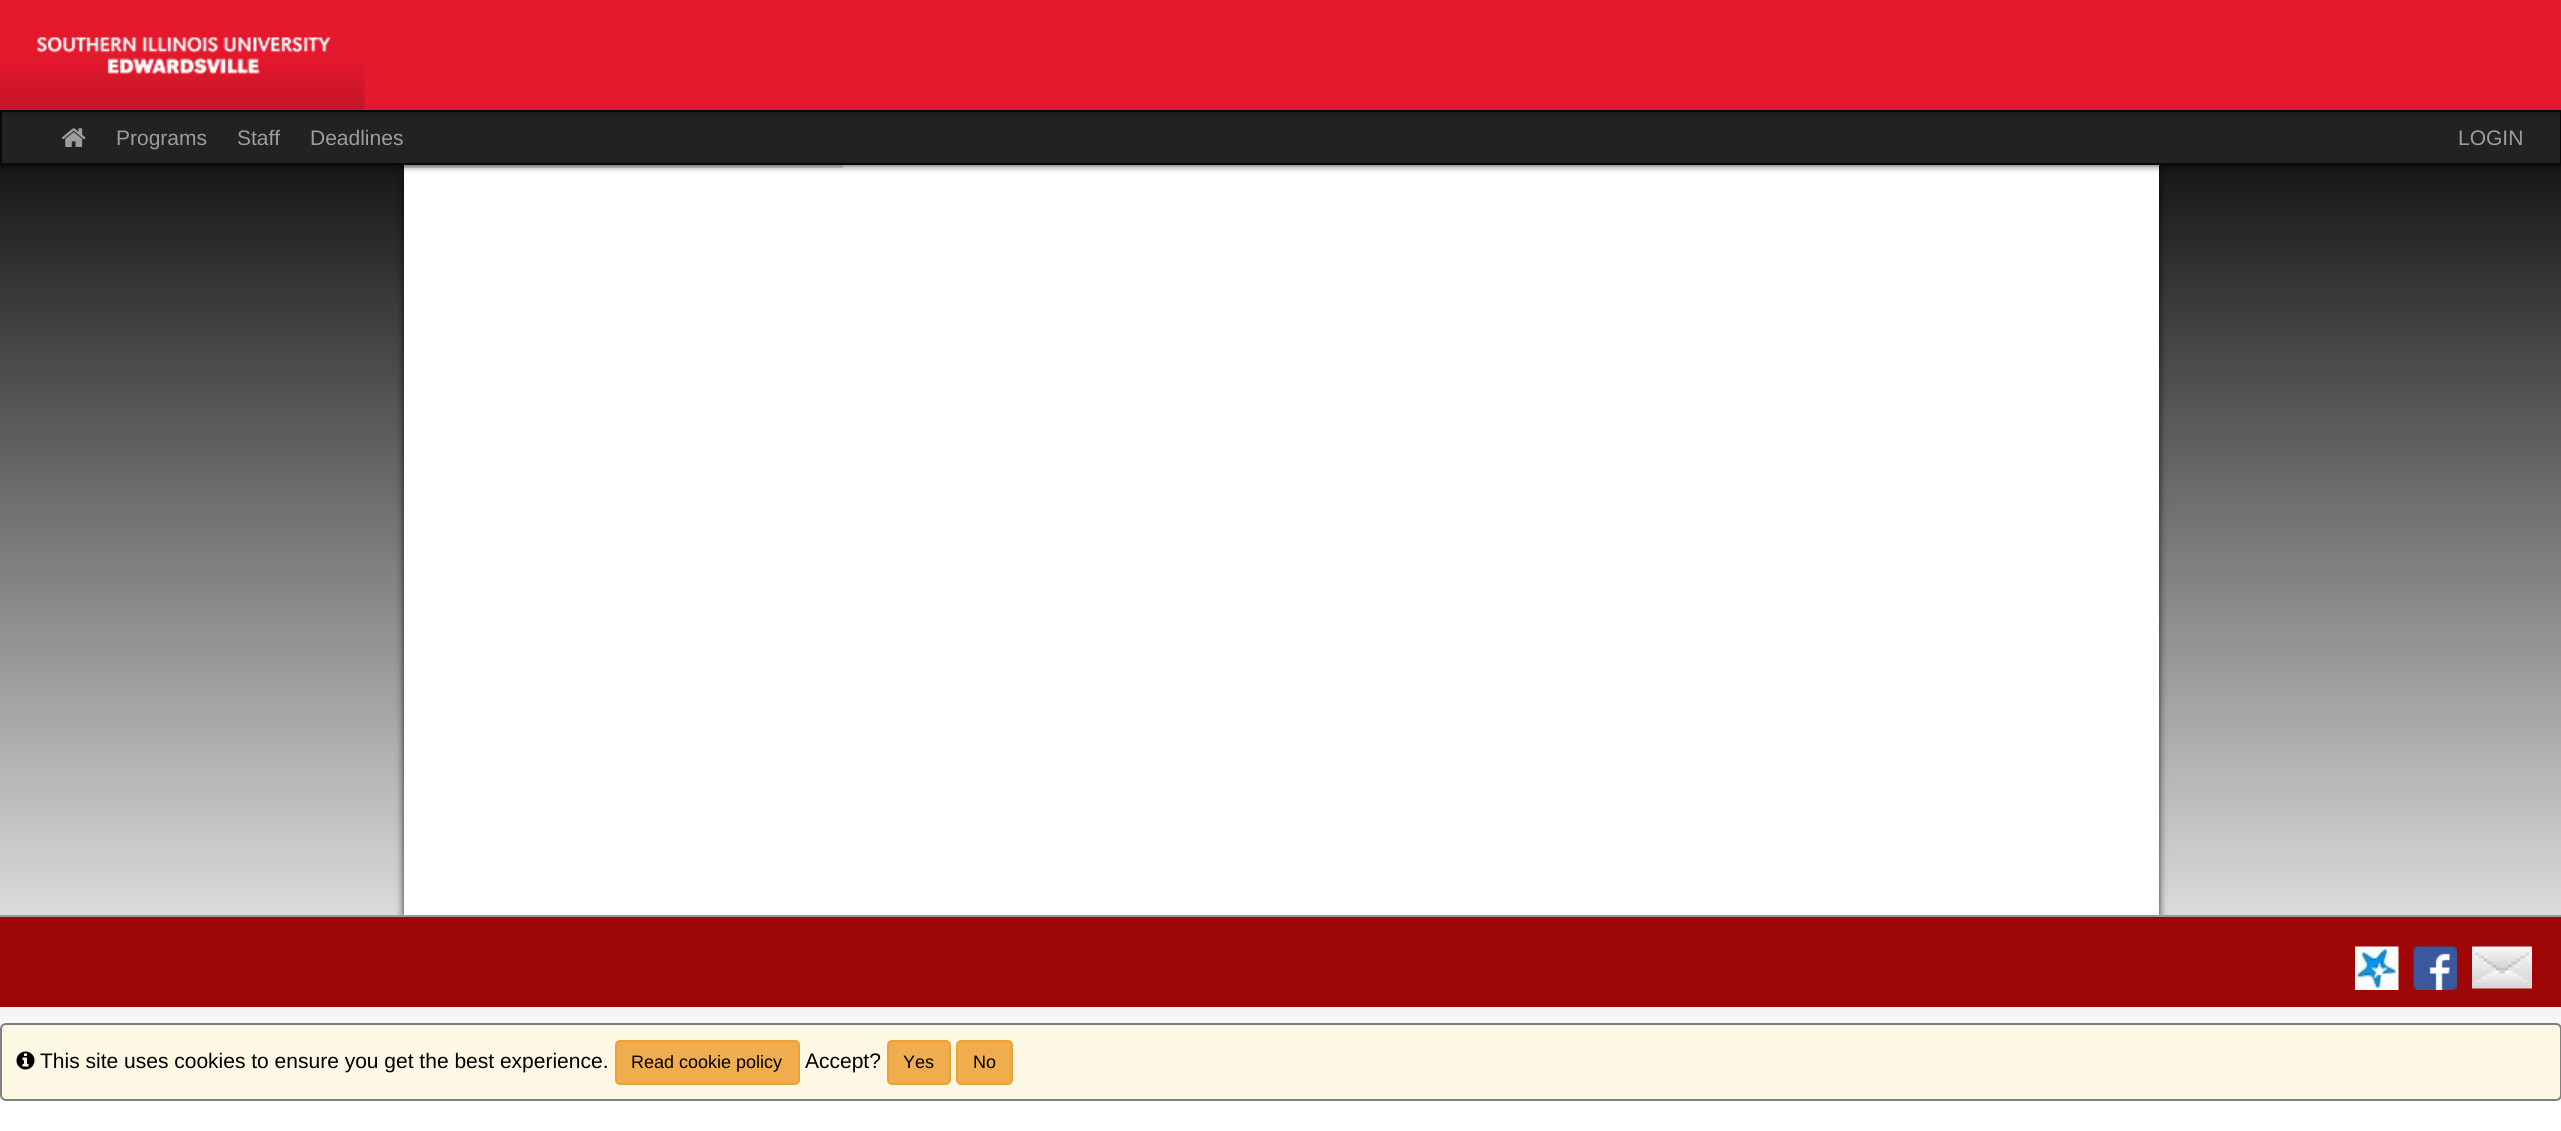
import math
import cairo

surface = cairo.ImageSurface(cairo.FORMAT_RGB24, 2561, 1131)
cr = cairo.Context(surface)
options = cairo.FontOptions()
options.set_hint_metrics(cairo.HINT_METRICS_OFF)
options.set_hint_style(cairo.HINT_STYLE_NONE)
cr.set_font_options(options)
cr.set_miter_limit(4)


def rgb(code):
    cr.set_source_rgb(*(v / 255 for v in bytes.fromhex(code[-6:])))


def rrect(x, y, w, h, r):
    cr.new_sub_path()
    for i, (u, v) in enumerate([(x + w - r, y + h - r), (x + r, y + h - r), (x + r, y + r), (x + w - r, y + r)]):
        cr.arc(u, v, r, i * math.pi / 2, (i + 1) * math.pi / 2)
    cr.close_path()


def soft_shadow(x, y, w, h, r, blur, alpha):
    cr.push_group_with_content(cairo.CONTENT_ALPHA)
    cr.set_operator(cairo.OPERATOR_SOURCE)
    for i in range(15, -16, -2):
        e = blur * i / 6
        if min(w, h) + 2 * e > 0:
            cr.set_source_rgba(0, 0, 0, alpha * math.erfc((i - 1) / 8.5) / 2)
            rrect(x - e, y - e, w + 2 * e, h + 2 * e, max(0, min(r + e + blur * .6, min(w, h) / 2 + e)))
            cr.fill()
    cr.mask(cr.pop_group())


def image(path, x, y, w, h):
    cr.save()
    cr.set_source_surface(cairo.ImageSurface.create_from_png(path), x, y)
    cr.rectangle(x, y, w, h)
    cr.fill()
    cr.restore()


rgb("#ffffff")
cr.paint()
gradient = cairo.LinearGradient(1281, 0, 1281, 1131)
gradient.add_color_stop_rgba(0.07, 0, 0, 0, 1)
gradient.add_color_stop_rgba(0.93, 1, 1, 1, 1)
cr.set_source(gradient)
cr.rectangle(0, 165, 2561, 877)
cr.fill()
rgb("#000000")
soft_shadow(404, 165, 1755, 750, 0, 4, 0.8)
rgb("#ffffff")
cr.rectangle(404, 165, 1755, 750)
cr.fill()
rgb("#d9d9d9")
cr.new_path()
cr.move_to(404, 165)
cr.line_to(843, 165)
cr.line_to(842, 166)
cr.line_to(404, 166)
cr.close_path()
cr.fill()
cr.set_source_rgba(0, 0, 0, 0.15)
cr.new_path()
cr.move_to(843, 165)
cr.line_to(843, 168)
cr.line_to(841.5, 166.5)
cr.close_path()
cr.fill()
cr.new_path()
cr.move_to(843, 168)
cr.line_to(404, 168)
cr.line_to(404, 166)
cr.line_to(842, 166)
cr.close_path()
cr.fill()
rgb("#000000")
soft_shadow(0, 110, 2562, 55, 0, 4, 0.8)
rgb("#222222")
cr.rectangle(1, 111, 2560, 53)
cr.fill_preserve()
rgb("#080808")
cr.stroke()
rgb("#000000")
soft_shadow(0, 0, 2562, 110, 0, 4, 0.8)
rgb("#e5182d")
cr.rectangle(0, 0, 2561, 110)
cr.fill()
image("img/1.png", 0, 37, 365, 73)
image("img/2.png", 61, 128, 25, 19)
rgb("#999999")
cr.rectangle(0, 915, 2561, 2)
cr.fill()
rgb("#9f0707")
cr.rectangle(0, 917, 2561, 90)
cr.fill()
image("img/3.png", 2355, 946, 44, 44)
image("img/4.png", 2413, 946, 44, 44)
image("img/5.png", 2472, 946, 60, 43)
rgb("#fcf8e3")
rrect(1, 1024, 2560, 76, 5)
cr.fill_preserve()
rgb("#808080")
cr.stroke()
image("img/6.png", 16, 1051, 19, 19)
rgb("#f0ad4e")
rrect(616, 1041, 183, 43, 4)
cr.fill_preserve()
rgb("#eea236")
cr.stroke()
rgb("#f0ad4e")
rrect(888, 1041, 62, 43, 4)
cr.fill_preserve()
rgb("#eea236")
cr.stroke()
rgb("#f0ad4e")
rrect(957, 1041, 55, 43, 4)
cr.fill_preserve()
rgb("#eea236")
cr.stroke()
cr.select_font_face("Liberation Sans")
cr.set_font_size(21)
rgb("#9d9d9d")
for x, y, s in [
    (116, 145, "Programs"),
    (237, 145, "Staff"),
    (310, 145, "Deadlines"),
    (2458, 145, "LOGIN"),
]:
    cr.move_to(x, y)
    cr.show_text(s)
rgb("#000000")
cr.move_to(40, 1068)
cr.show_text("This site uses cookies to ensure you get the best experience.")
cr.set_font_size(18)
cr.move_to(631, 1068)
cr.show_text("Read cookie policy")
cr.set_font_size(21)
cr.move_to(805, 1068)
cr.show_text("Accept?")
cr.set_font_size(18)
cr.move_to(903, 1068)
cr.show_text("Yes")
cr.move_to(973, 1068)
cr.show_text("No")
surface.write_to_png("page.png")
